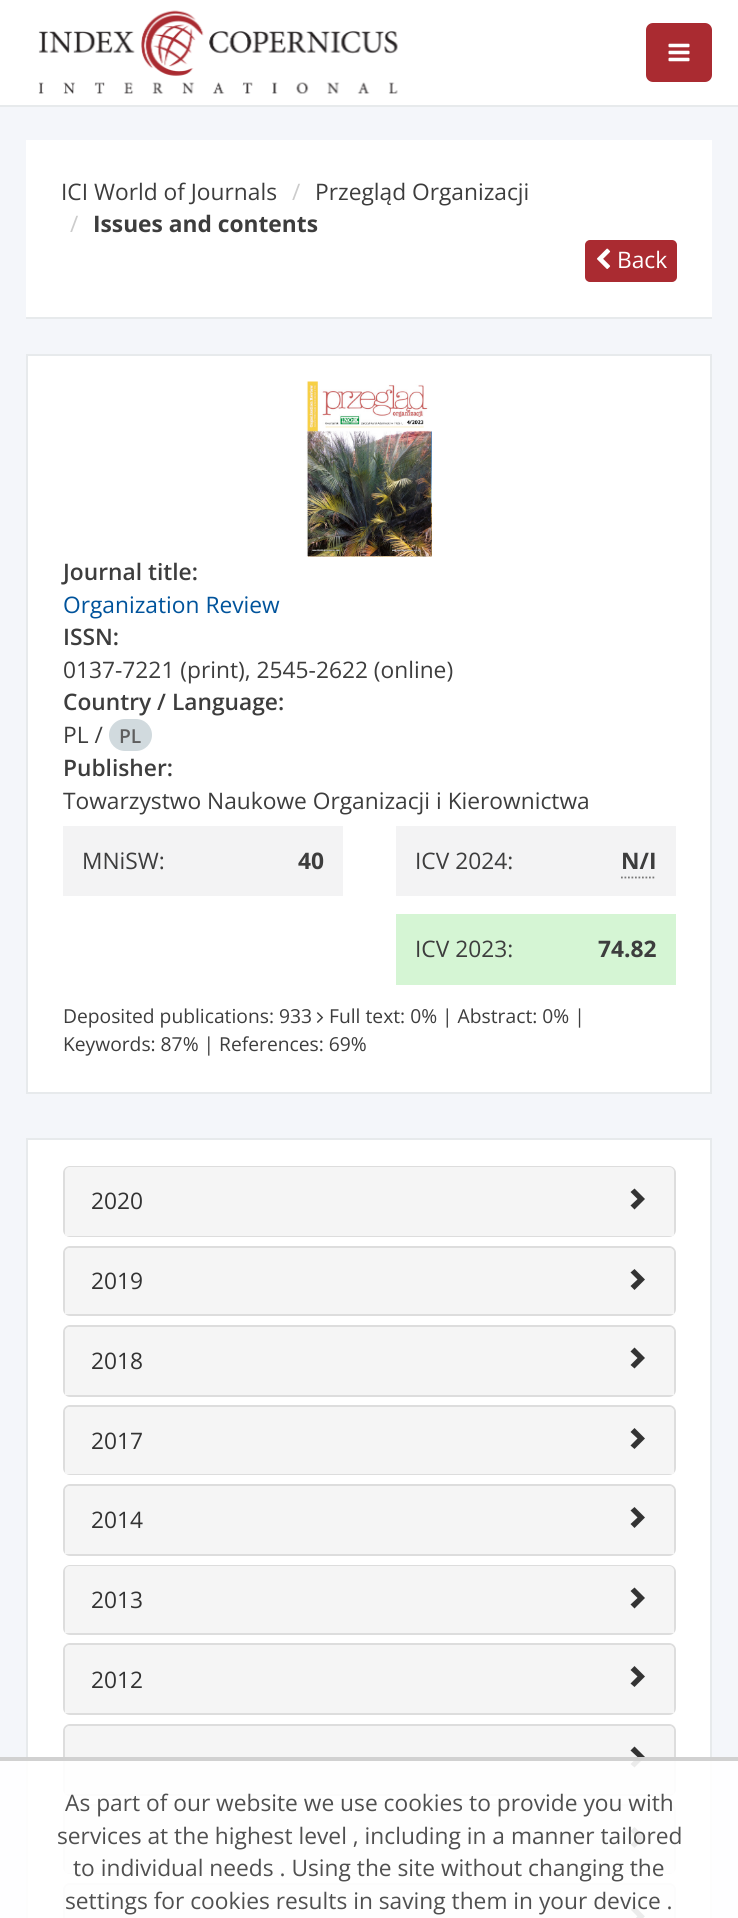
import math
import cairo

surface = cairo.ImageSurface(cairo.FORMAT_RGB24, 738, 1918)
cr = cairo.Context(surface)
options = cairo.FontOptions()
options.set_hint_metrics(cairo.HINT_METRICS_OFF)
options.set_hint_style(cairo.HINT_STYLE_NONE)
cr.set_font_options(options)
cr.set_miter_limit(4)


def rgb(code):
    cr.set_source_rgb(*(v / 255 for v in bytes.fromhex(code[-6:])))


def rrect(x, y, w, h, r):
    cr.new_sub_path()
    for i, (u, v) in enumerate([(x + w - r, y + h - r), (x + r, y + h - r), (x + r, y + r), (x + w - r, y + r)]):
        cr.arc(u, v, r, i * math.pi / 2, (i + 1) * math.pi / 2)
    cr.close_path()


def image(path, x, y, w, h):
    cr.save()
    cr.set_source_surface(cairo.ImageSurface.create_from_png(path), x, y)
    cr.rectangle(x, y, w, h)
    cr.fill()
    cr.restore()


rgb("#f4f6fa")
cr.paint()
rgb("#ffffff")
cr.rectangle(0, 0, 738, 105)
cr.fill()
rgb("#e7eaec")
cr.rectangle(0, 105, 738, 2)
cr.fill()
image("img/1.png", 38, 10, 360, 84)
rgb("#aa2b31")
rrect(646, 23, 66, 59, 7)
cr.fill()
image("img/2.png", 668, 43, 22, 19)
rgb("#ffffff")
cr.rectangle(26, 140, 686, 177)
cr.fill()
rgb("#e7eaec")
cr.rectangle(26, 317, 686, 2)
cr.fill()
rgb("#aa2b31")
rrect(586, 241, 90, 40, 4)
cr.fill_preserve()
cr.stroke()
image("img/3.png", 597, 248, 14, 21)
rgb("#ffffff")
cr.rectangle(27, 355, 684, 738)
cr.fill_preserve()
rgb("#e7eaec")
cr.stroke()
image("img/4.png", 306, 381, 126, 176)
rgb("#d1dade")
rrect(109, 719, 43, 32, 16)
cr.fill()
rgb("#f3f3f4")
cr.rectangle(63, 826, 280, 70)
cr.fill()
cr.rectangle(396, 826, 280, 70)
cr.fill()
cr.new_path()
cr.move_to(621, 877.5)
cr.line_to(656, 877.5)
rgb("#777777")
cr.set_line_width(1.8)
cr.set_dash([1.75, 1.75])
cr.stroke()
rgb("#d5f5d4")
cr.rectangle(396, 914, 280, 71)
cr.fill()
image("img/5.png", 316, 1012, 8, 11)
rgb("#ffffff")
cr.rectangle(27, 1139, 684, 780)
cr.fill_preserve()
rgb("#e7eaec")
cr.set_line_width(2)
cr.set_dash([])
cr.stroke()
rrect(64, 1167, 611, 69, 6)
rgb("#dddddd")
cr.stroke()
rgb("#f5f5f5")
cr.new_path()
cr.move_to(70, 1167)
cr.line_to(669, 1167)
cr.curve_to(672, 1167, 674, 1169, 674, 1172)
cr.line_to(674, 1236)
cr.line_to(65, 1236)
cr.line_to(65, 1172)
cr.curve_to(65, 1169, 67, 1167, 70, 1167)
cr.close_path()
cr.fill()
rgb("#333333")
cr.new_path()
cr.move_to(645, 1199)
cr.line_to(634.5, 1209.5)
cr.line_to(630.5, 1205.5)
cr.line_to(637.5, 1199)
cr.line_to(630.5, 1192)
cr.line_to(634.5, 1188.5)
cr.close_path()
cr.fill()
rrect(64, 1247, 611, 68, 6)
rgb("#dddddd")
cr.stroke()
rgb("#f5f5f5")
cr.new_path()
cr.move_to(70, 1248)
cr.line_to(669, 1248)
cr.curve_to(672, 1248, 674, 1250, 674, 1253)
cr.line_to(674, 1314)
cr.line_to(65, 1314)
cr.line_to(65, 1253)
cr.curve_to(65, 1250, 67, 1248, 70, 1248)
cr.close_path()
cr.fill()
rgb("#333333")
cr.new_path()
cr.move_to(645, 1279.5)
cr.line_to(634.5, 1290)
cr.line_to(630.5, 1286)
cr.line_to(637.5, 1279.5)
cr.line_to(630.5, 1272.5)
cr.line_to(634.5, 1269)
cr.close_path()
cr.fill()
rrect(64, 1326, 611, 70, 6)
rgb("#dddddd")
cr.stroke()
rgb("#f5f5f5")
cr.new_path()
cr.move_to(70, 1327)
cr.line_to(669, 1327)
cr.curve_to(672, 1327, 674, 1329, 674, 1332)
cr.line_to(674, 1395)
cr.line_to(65, 1395)
cr.line_to(65, 1332)
cr.curve_to(65, 1329, 67, 1327, 70, 1327)
cr.close_path()
cr.fill()
rgb("#333333")
cr.new_path()
cr.move_to(645, 1358)
cr.line_to(634.5, 1368.5)
cr.line_to(630.5, 1365)
cr.line_to(637.5, 1358)
cr.line_to(630.5, 1351.5)
cr.line_to(634.5, 1347.5)
cr.close_path()
cr.fill()
rrect(64, 1406, 611, 68, 6)
rgb("#dddddd")
cr.stroke()
rgb("#f5f5f5")
cr.new_path()
cr.move_to(70, 1407)
cr.line_to(669, 1407)
cr.curve_to(672, 1407, 674, 1409, 674, 1412)
cr.line_to(674, 1474)
cr.line_to(65, 1474)
cr.line_to(65, 1412)
cr.curve_to(65, 1409, 67, 1407, 70, 1407)
cr.close_path()
cr.fill()
rgb("#333333")
cr.new_path()
cr.move_to(645, 1438.5)
cr.line_to(634.5, 1449)
cr.line_to(630.5, 1445.5)
cr.line_to(637.5, 1438.5)
cr.line_to(630.5, 1432)
cr.line_to(634.5, 1428)
cr.close_path()
cr.fill()
rrect(64, 1485, 611, 70, 6)
rgb("#dddddd")
cr.stroke()
rgb("#f5f5f5")
cr.new_path()
cr.move_to(70, 1486)
cr.line_to(669, 1486)
cr.curve_to(672, 1486, 674, 1488, 674, 1491)
cr.line_to(674, 1554)
cr.line_to(65, 1554)
cr.line_to(65, 1491)
cr.curve_to(65, 1488, 67, 1486, 70, 1486)
cr.close_path()
cr.fill()
rgb("#333333")
cr.new_path()
cr.move_to(645, 1517.5)
cr.line_to(634.5, 1528)
cr.line_to(630.5, 1524)
cr.line_to(637.5, 1517.5)
cr.line_to(630.5, 1510.5)
cr.line_to(634.5, 1507)
cr.close_path()
cr.fill()
rrect(64, 1566, 611, 68, 6)
rgb("#dddddd")
cr.stroke()
rgb("#f5f5f5")
cr.new_path()
cr.move_to(70, 1566)
cr.line_to(669, 1566)
cr.curve_to(672, 1566, 674, 1568, 674, 1571)
cr.line_to(674, 1633)
cr.line_to(65, 1633)
cr.line_to(65, 1571)
cr.curve_to(65, 1568, 67, 1566, 70, 1566)
cr.close_path()
cr.fill()
rgb("#333333")
cr.new_path()
cr.move_to(645, 1598)
cr.line_to(634.5, 1608.5)
cr.line_to(630.5, 1604.5)
cr.line_to(637.5, 1598)
cr.line_to(630.5, 1591)
cr.line_to(634.5, 1587.5)
cr.close_path()
cr.fill()
rrect(64, 1644, 611, 70, 6)
rgb("#dddddd")
cr.stroke()
rgb("#f5f5f5")
cr.new_path()
cr.move_to(70, 1645)
cr.line_to(669, 1645)
cr.curve_to(672, 1645, 674, 1647, 674, 1650)
cr.line_to(674, 1713)
cr.line_to(65, 1713)
cr.line_to(65, 1650)
cr.curve_to(65, 1647, 67, 1645, 70, 1645)
cr.close_path()
cr.fill()
rgb("#333333")
cr.new_path()
cr.move_to(645, 1676.5)
cr.line_to(634.5, 1687)
cr.line_to(630.5, 1683.5)
cr.line_to(637.5, 1676.5)
cr.line_to(630.5, 1670)
cr.line_to(634.5, 1666)
cr.close_path()
cr.fill()
rrect(64, 1725, 611, 70, 6)
rgb("#dddddd")
cr.stroke()
rgb("#f5f5f5")
cr.new_path()
cr.move_to(70, 1726)
cr.line_to(669, 1726)
cr.curve_to(672, 1726, 674, 1728, 674, 1731)
cr.line_to(674, 1794)
cr.line_to(65, 1794)
cr.line_to(65, 1731)
cr.curve_to(65, 1728, 67, 1726, 70, 1726)
cr.close_path()
cr.fill()
rgb("#333333")
cr.new_path()
cr.move_to(645, 1757)
cr.line_to(634.5, 1767.5)
cr.line_to(630.5, 1764)
cr.line_to(637.5, 1757)
cr.line_to(630.5, 1750.5)
cr.line_to(634.5, 1746.5)
cr.close_path()
cr.fill()
rrect(64, 1805, 611, 68, 6)
rgb("#dddddd")
cr.stroke()
rgb("#f5f5f5")
cr.new_path()
cr.move_to(70, 1806)
cr.line_to(669, 1806)
cr.curve_to(672, 1806, 674, 1808, 674, 1811)
cr.line_to(674, 1873)
cr.line_to(65, 1873)
cr.line_to(65, 1811)
cr.curve_to(65, 1808, 67, 1806, 70, 1806)
cr.close_path()
cr.fill()
rgb("#333333")
cr.new_path()
cr.move_to(645, 1837.5)
cr.line_to(634.5, 1848)
cr.line_to(630.5, 1844.5)
cr.line_to(637.5, 1837.5)
cr.line_to(630.5, 1831)
cr.line_to(634.5, 1827)
cr.close_path()
cr.fill()
rrect(64, 1884, 611, 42, 6)
rgb("#dddddd")
cr.stroke()
rgb("#f5f5f5")
cr.new_path()
cr.move_to(70, 1885)
cr.line_to(669, 1885)
cr.curve_to(672, 1885, 674, 1887, 674, 1890)
cr.line_to(674, 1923)
cr.line_to(65, 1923)
cr.line_to(65, 1890)
cr.curve_to(65, 1887, 67, 1885, 70, 1885)
cr.close_path()
cr.fill()
image("img/6.png", 630, 1906, 15, 12)
cr.set_source_rgba(1, 1, 1, 0.9)
cr.rectangle(0, 1757, 738, 161)
cr.fill()
cr.set_source_rgba(0.8, 0.8, 0.8, 0.9)
cr.rectangle(0, 1757, 738, 4)
cr.fill()
cr.select_font_face("Open Sans")
cr.set_font_size(22.75)
rgb("#3d3d3d")
cr.move_to(61, 200)
cr.show_text("ICI World of Journals")
rgb("#cccccc")
cr.move_to(292, 200)
cr.show_text("/")
rgb("#3d3d3d")
cr.move_to(315, 200)
cr.show_text("Przegląd Organizacji")
rgb("#cccccc")
cr.move_to(70, 232)
cr.show_text("/")
cr.select_font_face("Open Sans", cairo.FONT_SLANT_NORMAL, cairo.FONT_WEIGHT_BOLD)
rgb("#3d3d3d")
cr.move_to(93, 232)
cr.show_text("Issues and contents")
cr.select_font_face("Open Sans")
rgb("#ffffff")
cr.move_to(617, 268)
cr.show_text("Back")
cr.select_font_face("Open Sans SemiBold")
rgb("#3d3d3d")
cr.move_to(63, 580)
cr.show_text("Journal title:")
cr.select_font_face("Open Sans")
rgb("#00539b")
cr.move_to(63, 613)
cr.show_text("Organization Review")
cr.select_font_face("Open Sans SemiBold")
rgb("#3d3d3d")
cr.move_to(63, 645)
cr.show_text("ISSN:")
cr.select_font_face("Open Sans")
cr.move_to(63, 678)
cr.show_text("0137-7221 (print), 2545-2622 (online)")
cr.select_font_face("Open Sans SemiBold")
cr.move_to(63, 710)
cr.show_text("Country / Language:")
cr.select_font_face("Open Sans")
cr.move_to(63, 743)
cr.show_text("PL /")
cr.select_font_face("Open Sans SemiBold")
cr.set_font_size(19.25)
rgb("#5e5e5e")
cr.move_to(119, 743)
cr.show_text("PL")
cr.set_font_size(22.75)
rgb("#3d3d3d")
cr.move_to(63, 776)
cr.show_text("Publisher:")
cr.select_font_face("Open Sans")
cr.move_to(63, 809)
cr.show_text("Towarzystwo Naukowe Organizacji i Kierownictwa")
cr.move_to(82, 869)
cr.show_text("MNiSW:")
cr.select_font_face("Open Sans", cairo.FONT_SLANT_NORMAL, cairo.FONT_WEIGHT_BOLD)
cr.move_to(298, 869)
cr.show_text("40")
cr.select_font_face("Open Sans")
cr.move_to(415, 869)
cr.show_text("ICV 2024:")
cr.select_font_face("Open Sans", cairo.FONT_SLANT_NORMAL, cairo.FONT_WEIGHT_BOLD)
cr.move_to(621, 869)
cr.show_text("N/I")
cr.select_font_face("Open Sans")
cr.move_to(415, 957)
cr.show_text("ICV 2023:")
cr.select_font_face("Open Sans", cairo.FONT_SLANT_NORMAL, cairo.FONT_WEIGHT_BOLD)
cr.move_to(598, 957)
cr.show_text("74.82")
cr.select_font_face("Open Sans")
cr.set_font_size(19.25)
for x, y, s in [
    (63, 1023, "Deposited publications: 933"),
    (329, 1023, "Full text: 0% | Abstract: 0% |"),
    (63, 1051, "Keywords: 87% | References: 69%"),
]:
    cr.move_to(x, y)
    cr.show_text(s)
cr.set_font_size(22.75)
rgb("#333333")
for x, y, s in [
    (91, 1209, "2020"),
    (91, 1289, "2019"),
    (91, 1369, "2018"),
    (91, 1449, "2017"),
    (91, 1528, "2014"),
    (91, 1608, "2013"),
    (91, 1688, "2012"),
]:
    cr.move_to(x, y)
    cr.show_text(s)
rgb("#505050")
for x, y, s in [
    (65, 1811, "As part of our website we use cookies to provide you with"),
    (57, 1844, "services at the highest level , including in a manner tailored"),
    (73, 1876, "to individual needs . Using the site without changing the"),
    (65, 1909, "settings for cookies results in saving them in your device ."),
]:
    cr.move_to(x, y)
    cr.show_text(s)
surface.write_to_png("page.png")
